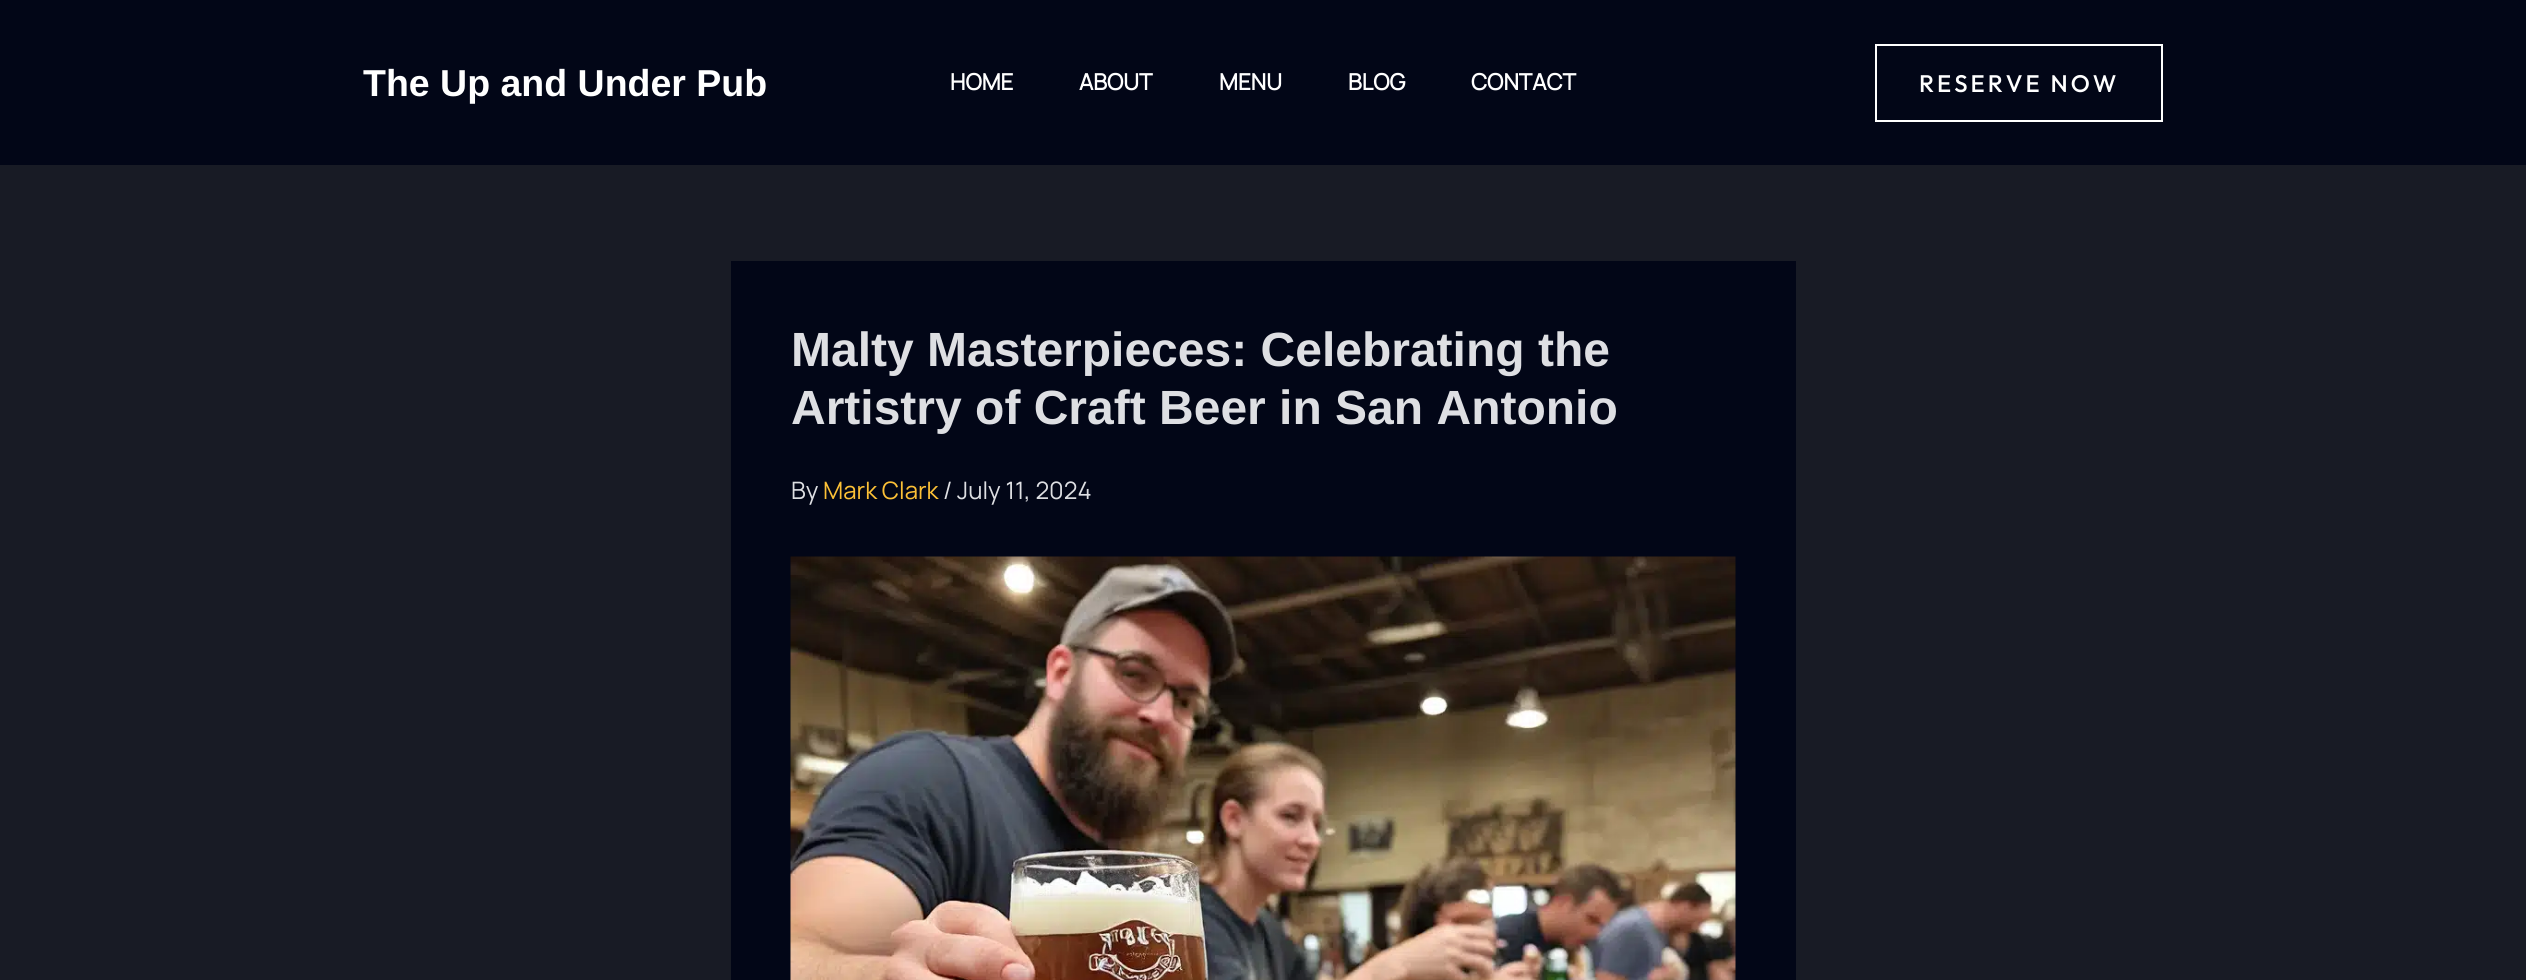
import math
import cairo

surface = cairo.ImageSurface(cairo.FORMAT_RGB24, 2526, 980)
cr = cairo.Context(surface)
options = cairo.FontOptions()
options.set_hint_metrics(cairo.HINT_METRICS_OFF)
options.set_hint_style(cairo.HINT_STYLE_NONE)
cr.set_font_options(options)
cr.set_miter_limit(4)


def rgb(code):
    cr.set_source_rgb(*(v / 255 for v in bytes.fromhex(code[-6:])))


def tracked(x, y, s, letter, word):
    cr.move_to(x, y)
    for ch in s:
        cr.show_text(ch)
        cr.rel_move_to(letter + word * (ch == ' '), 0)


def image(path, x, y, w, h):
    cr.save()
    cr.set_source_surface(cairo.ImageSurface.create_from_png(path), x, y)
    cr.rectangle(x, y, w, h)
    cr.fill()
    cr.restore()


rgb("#181b25")
cr.paint()
rgb("#020617")
cr.rectangle(0, 0, 2526, 165)
cr.fill()
cr.rectangle(1876, 45, 286, 76)
rgb("#ffffff")
cr.stroke()
rgb("#020617")
cr.rectangle(731, 261, 1065, 719)
cr.fill()
image("img/1.png", 790, 556, 946, 424)
cr.select_font_face("Liberation Sans", cairo.FONT_SLANT_NORMAL, cairo.FONT_WEIGHT_BOLD)
cr.set_font_size(37.5)
rgb("#ffffff")
cr.move_to(363, 96)
cr.show_text("The Up and Under Pub")
cr.select_font_face("Manrope", cairo.FONT_SLANT_NORMAL, cairo.FONT_WEIGHT_BOLD)
cr.set_font_size(22.5)
for x, y, s in [
    (950, 90, "HOME"),
    (1079, 90, "ABOUT"),
    (1219, 90, "MENU"),
    (1348, 90, "BLOG"),
    (1471, 90, "CONTACT"),
]:
    cr.move_to(x, y)
    cr.show_text(s)
cr.select_font_face("Outfit Thin")
cr.set_font_size(24)
tracked(1919, 92, "RESERVE NOW", 3, 0)
cr.select_font_face("Liberation Sans", cairo.FONT_SLANT_NORMAL, cairo.FONT_WEIGHT_BOLD)
cr.set_font_size(48)
rgb("#dedfe3")
cr.move_to(791, 366)
cr.show_text("Malty Masterpieces: Celebrating the")
cr.move_to(791, 424)
cr.show_text("Artistry of Craft Beer in San Antonio")
cr.select_font_face("Manrope ExtraLight")
cr.set_font_size(24)
cr.move_to(791, 499)
cr.show_text("By")
rgb("#fcc036")
cr.move_to(823, 499)
cr.show_text("Mark Clark")
rgb("#dedfe3")
cr.move_to(943, 499)
cr.show_text("/ July 11, 2024")
surface.write_to_png("page.png")
